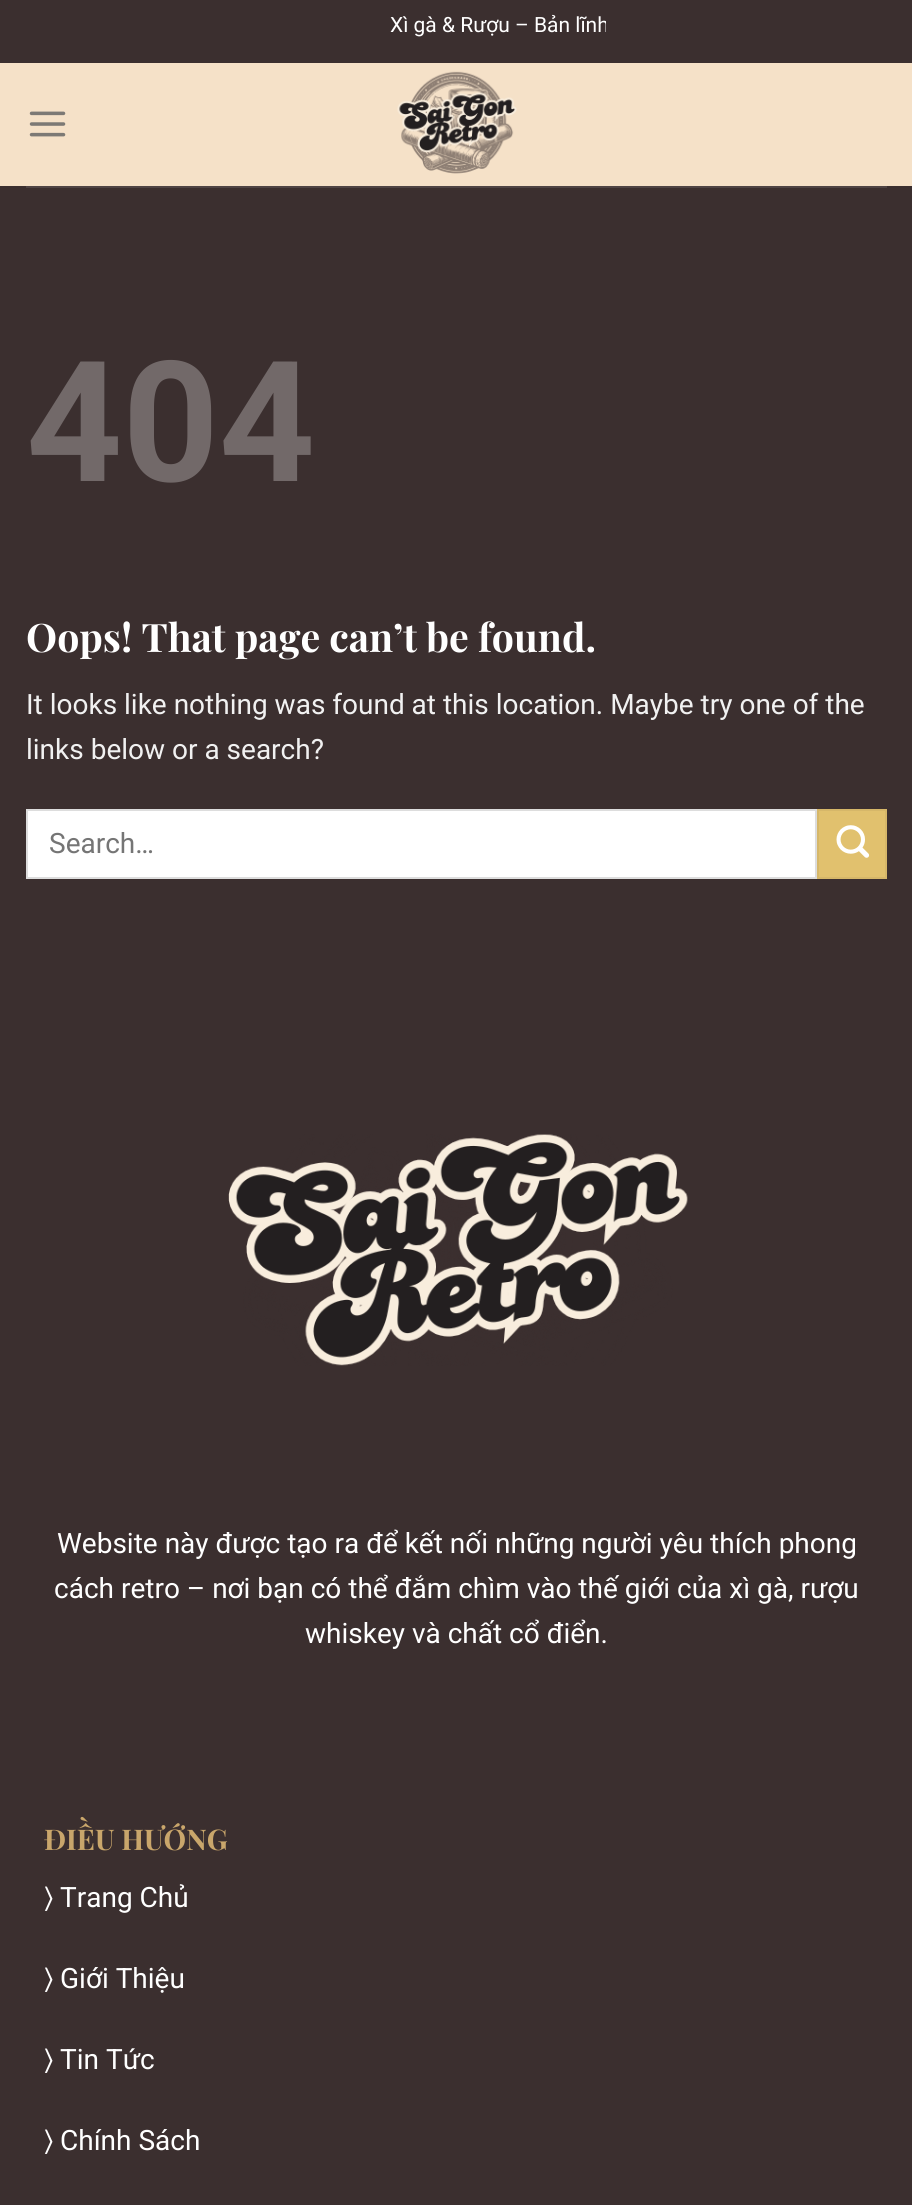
import math
import cairo

surface = cairo.ImageSurface(cairo.FORMAT_RGB24, 912, 2205)
cr = cairo.Context(surface)
options = cairo.FontOptions()
options.set_hint_metrics(cairo.HINT_METRICS_OFF)
options.set_hint_style(cairo.HINT_STYLE_NONE)
cr.set_font_options(options)
cr.set_miter_limit(4)


def rgb(code):
    cr.set_source_rgb(*(v / 255 for v in bytes.fromhex(code[-6:])))


def image(path, x, y, w, h):
    cr.save()
    cr.set_source_surface(cairo.ImageSurface.create_from_png(path), x, y)
    cr.rectangle(x, y, w, h)
    cr.fill()
    cr.restore()


rgb("#3b2f2f")
cr.paint()
rgb("#f5e1c8")
cr.rectangle(0, 63, 912, 123)
cr.fill()
image("img/1.png", 29, 111, 37, 26)
image("img/2.png", 397, 71, 120, 103)
rgb("#4f4444")
cr.rectangle(26, 186, 861, 2)
cr.fill()
rgb("#ffffff")
cr.rectangle(27, 810, 789, 68)
cr.fill_preserve()
rgb("#dddddd")
cr.stroke()
rgb("#e1c16e")
cr.rectangle(818, 810, 68, 68)
cr.fill_preserve()
rgb("#d6b769")
cr.stroke()
image("img/3.png", 836, 825, 34, 33)
image("img/4.png", 228, 1134, 460, 232)
cr.save()
cr.rectangle(308, 9, 298, 35)
cr.clip()
cr.select_font_face("Roboto")
cr.set_font_size(21)
rgb("#ffffff")
cr.move_to(390, 32)
cr.show_text("Xì gà & Rượu – Bản lĩnh")
cr.restore()
cr.select_font_face("Roboto", cairo.FONT_SLANT_NORMAL, cairo.FONT_WEIGHT_BOLD)
cr.set_font_size(168)
rgb("#726969")
cr.move_to(26, 481)
cr.show_text("404")
cr.select_font_face("Playfair Display", cairo.FONT_SLANT_NORMAL, cairo.FONT_WEIGHT_BOLD)
cr.set_font_size(39.25)
rgb("#ffffff")
cr.move_to(26, 652)
cr.show_text("Oops! That page can’t be found.")
cr.select_font_face("Roboto")
cr.set_font_size(28)
rgb("#f1f1f1")
cr.move_to(26, 714)
cr.show_text("It looks like nothing was found at this location. Maybe try one of the")
cr.move_to(26, 759)
cr.show_text("links below or a search?")
rgb("#757575")
cr.move_to(49, 853)
cr.show_text("Search…")
rgb("#ffffff")
for x, y, s in [
    (57, 1553, "Website này được tạo ra để kết nối những người yêu thích phong"),
    (54, 1598, "cách retro – nơi bạn có thể đắm chìm vào thế giới của xì gà, rượu"),
    (305, 1643, "whiskey và chất cổ điển."),
]:
    cr.move_to(x, y)
    cr.show_text(s)
cr.select_font_face("Playfair Display", cairo.FONT_SLANT_NORMAL, cairo.FONT_WEIGHT_BOLD)
cr.set_font_size(28.5)
rgb("#c9a66b")
cr.move_to(44, 1850)
cr.show_text("ĐIỀU HƯỚNG")
cr.select_font_face("FreeSans")
cr.set_font_size(28)
rgb("#ffffff")
cr.move_to(44, 1907)
cr.show_text("〉")
cr.select_font_face("Roboto")
cr.move_to(60, 1907)
cr.show_text("Trang Chủ")
cr.select_font_face("FreeSans")
cr.move_to(44, 1988)
cr.show_text("〉")
cr.select_font_face("Roboto")
cr.move_to(60, 1988)
cr.show_text("Giới Thiệu")
cr.select_font_face("FreeSans")
cr.move_to(44, 2069)
cr.show_text("〉")
cr.select_font_face("Roboto")
cr.move_to(60, 2069)
cr.show_text("Tin Tức")
cr.select_font_face("FreeSans")
cr.move_to(44, 2150)
cr.show_text("〉")
cr.select_font_face("Roboto")
cr.move_to(60, 2150)
cr.show_text("Chính Sách")
surface.write_to_png("page.png")
